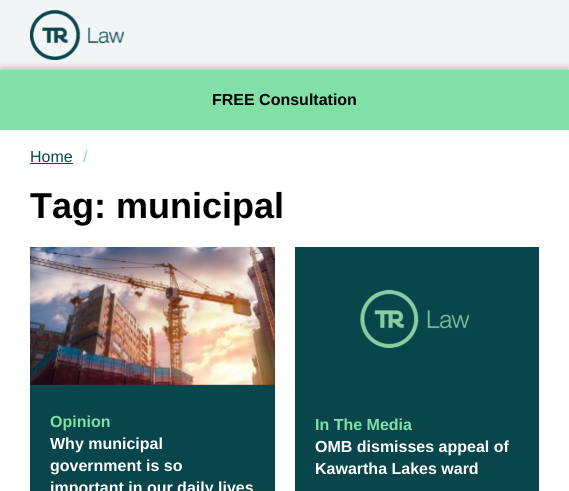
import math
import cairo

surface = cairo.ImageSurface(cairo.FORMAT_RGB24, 569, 491)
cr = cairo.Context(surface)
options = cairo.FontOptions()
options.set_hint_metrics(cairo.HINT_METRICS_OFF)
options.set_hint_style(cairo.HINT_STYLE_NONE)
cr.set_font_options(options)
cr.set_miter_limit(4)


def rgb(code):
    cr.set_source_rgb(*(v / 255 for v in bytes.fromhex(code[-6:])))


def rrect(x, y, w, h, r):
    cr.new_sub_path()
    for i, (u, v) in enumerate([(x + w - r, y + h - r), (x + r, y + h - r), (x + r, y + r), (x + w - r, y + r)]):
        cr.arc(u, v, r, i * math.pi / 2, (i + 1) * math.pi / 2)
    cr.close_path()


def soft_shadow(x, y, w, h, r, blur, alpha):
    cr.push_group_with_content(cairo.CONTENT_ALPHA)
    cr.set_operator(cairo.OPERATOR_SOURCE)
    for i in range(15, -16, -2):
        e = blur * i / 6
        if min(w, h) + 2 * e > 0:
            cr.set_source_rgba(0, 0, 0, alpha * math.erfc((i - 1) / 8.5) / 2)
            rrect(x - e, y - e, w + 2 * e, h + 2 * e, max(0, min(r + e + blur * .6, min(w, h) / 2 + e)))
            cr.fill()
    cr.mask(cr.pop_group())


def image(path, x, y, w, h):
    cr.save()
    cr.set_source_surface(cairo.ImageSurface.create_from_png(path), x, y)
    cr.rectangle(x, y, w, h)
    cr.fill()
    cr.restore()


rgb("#ffffff")
cr.paint()
rgb("#f2f5f6")
cr.rectangle(0, 0, 569, 70)
cr.fill()
rgb("#000000")
soft_shadow(0, 67, 569, 60, 0, 3, 0.2)
image("img/1.png", 30, 10, 94, 50)
for x, y, w, h, color in [
    (0, 70, 569, 60, "#80e0a7"),
    (30, 163, 43, 1, "#08464c"),
    (30, 247, 245, 244, "#08464c"),
]:
    rgb(color)
    cr.rectangle(x, y, w, h)
    cr.fill()
image("img/2.png", 30, 247, 245, 138)
cr.rectangle(295, 247, 244, 244)
cr.fill()
image("img/3.png", 360, 289, 110, 60)
cr.select_font_face("Liberation Sans", cairo.FONT_SLANT_NORMAL, cairo.FONT_WEIGHT_BOLD)
cr.set_font_size(16)
rgb("#000000")
cr.move_to(212, 105)
cr.show_text("FREE Consultation")
cr.select_font_face("Liberation Sans")
rgb("#08464c")
cr.move_to(30, 162)
cr.show_text("Home")
rgb("#80e0a7")
cr.move_to(83, 162)
cr.show_text("/")
cr.select_font_face("Liberation Sans", cairo.FONT_SLANT_NORMAL, cairo.FONT_WEIGHT_BOLD)
cr.set_font_size(36)
rgb("#000000")
cr.move_to(30, 218)
cr.show_text("Tag: municipal")
cr.set_font_size(16)
rgb("#80e0a7")
cr.move_to(50, 427)
cr.show_text("Opinion")
rgb("#ffffff")
for x, y, s in [
    (50, 449, "Why municipal"),
    (50, 471, "government is so"),
    (50, 493, "important in our daily lives"),
]:
    cr.move_to(x, y)
    cr.show_text(s)
rgb("#80e0a7")
cr.move_to(315, 430)
cr.show_text("In The Media")
rgb("#ffffff")
cr.move_to(315, 452)
cr.show_text("OMB dismisses appeal of")
cr.move_to(315, 474)
cr.show_text("Kawartha Lakes ward")
surface.write_to_png("page.png")
